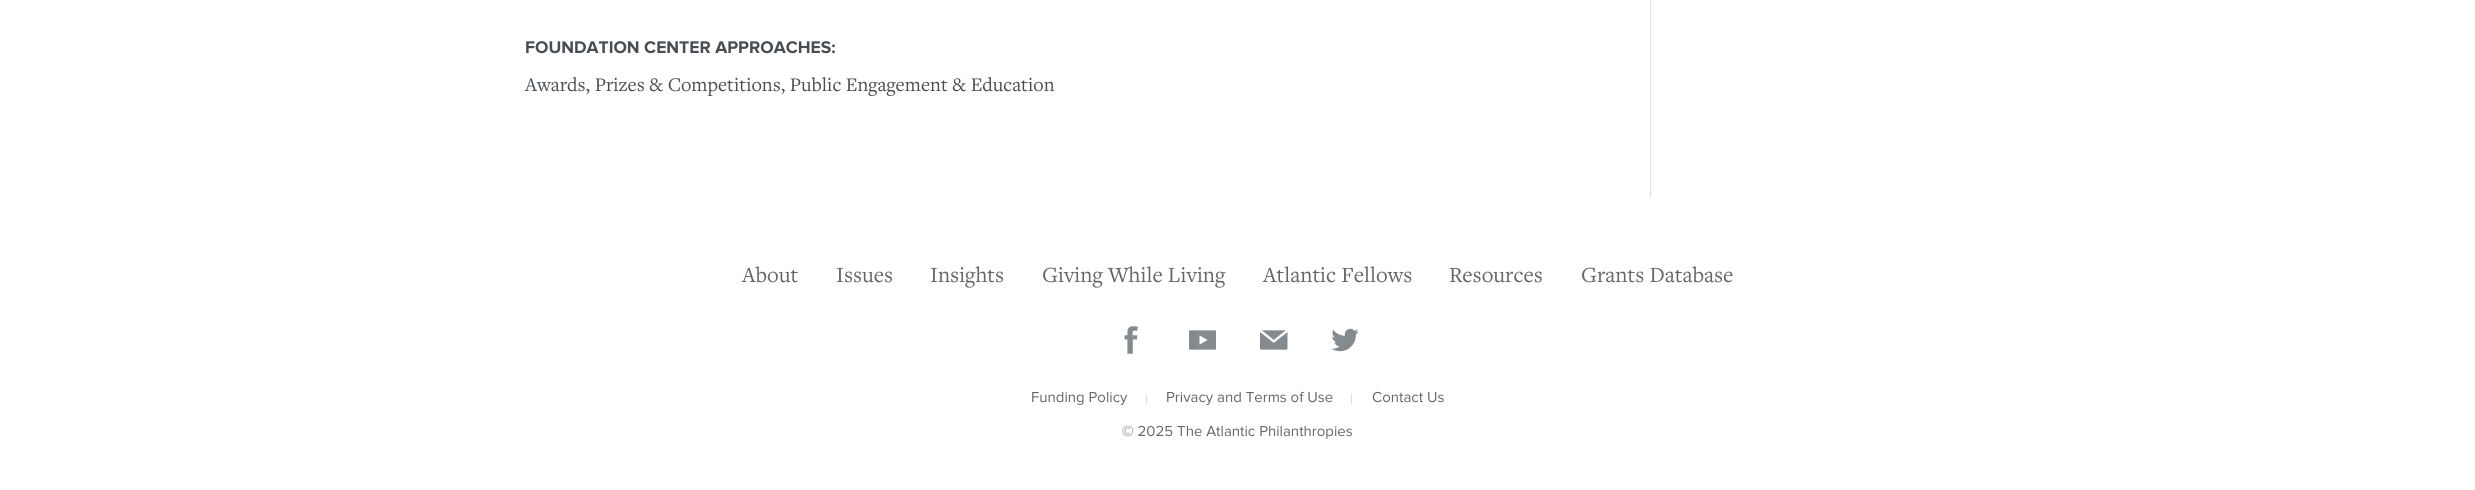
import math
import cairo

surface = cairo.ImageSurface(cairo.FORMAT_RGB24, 2475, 490)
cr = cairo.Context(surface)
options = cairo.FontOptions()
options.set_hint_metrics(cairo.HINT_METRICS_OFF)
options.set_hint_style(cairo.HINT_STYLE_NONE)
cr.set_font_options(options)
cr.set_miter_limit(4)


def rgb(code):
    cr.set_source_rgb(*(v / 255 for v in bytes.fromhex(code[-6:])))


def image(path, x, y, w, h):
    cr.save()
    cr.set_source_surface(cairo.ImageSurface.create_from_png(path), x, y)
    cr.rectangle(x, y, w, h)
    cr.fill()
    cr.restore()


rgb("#ffffff")
cr.paint()
rgb("#dfdfdf")
cr.rectangle(1650, 0, 1, 198)
cr.fill()
image("img/1.png", 1124, 326, 14, 28)
image("img/2.png", 1189, 330, 27, 20)
image("img/3.png", 1260, 330, 28, 20)
image("img/4.png", 1331, 328, 28, 24)
rgb("#e0e0e0")
cr.rectangle(1146, 394, 1, 10)
cr.fill()
cr.rectangle(1351, 394, 1, 10)
cr.fill()
cr.select_font_face("Proxima Nova", cairo.FONT_SLANT_NORMAL, cairo.FONT_WEIGHT_BOLD)
cr.set_font_size(17.5)
rgb("#464e54")
cr.move_to(525, 53)
cr.show_text("FOUNDATION CENTER APPROACHES:")
cr.select_font_face("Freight")
cr.set_font_size(20)
cr.move_to(525, 91)
cr.show_text("Awards, Prizes & Competitions, Public Engagement & Education")
cr.set_font_size(22.5)
rgb("#666666")
for x, y, s in [
    (742, 282, "About"),
    (836, 282, "Issues"),
    (930, 282, "Insights"),
    (1042, 282, "Giving While Living"),
    (1263, 282, "Atlantic Fellows"),
    (1449, 282, "Resources"),
    (1581, 282, "Grants Database"),
]:
    cr.move_to(x, y)
    cr.show_text(s)
cr.select_font_face("Proxima Nova")
cr.set_font_size(15)
for x, y, s in [
    (1031, 402, "Funding Policy"),
    (1166, 402, "Privacy and Terms of Use"),
    (1372, 402, "Contact Us"),
    (1122, 436, "© 2025 The Atlantic Philanthropies"),
]:
    cr.move_to(x, y)
    cr.show_text(s)
surface.write_to_png("page.png")
